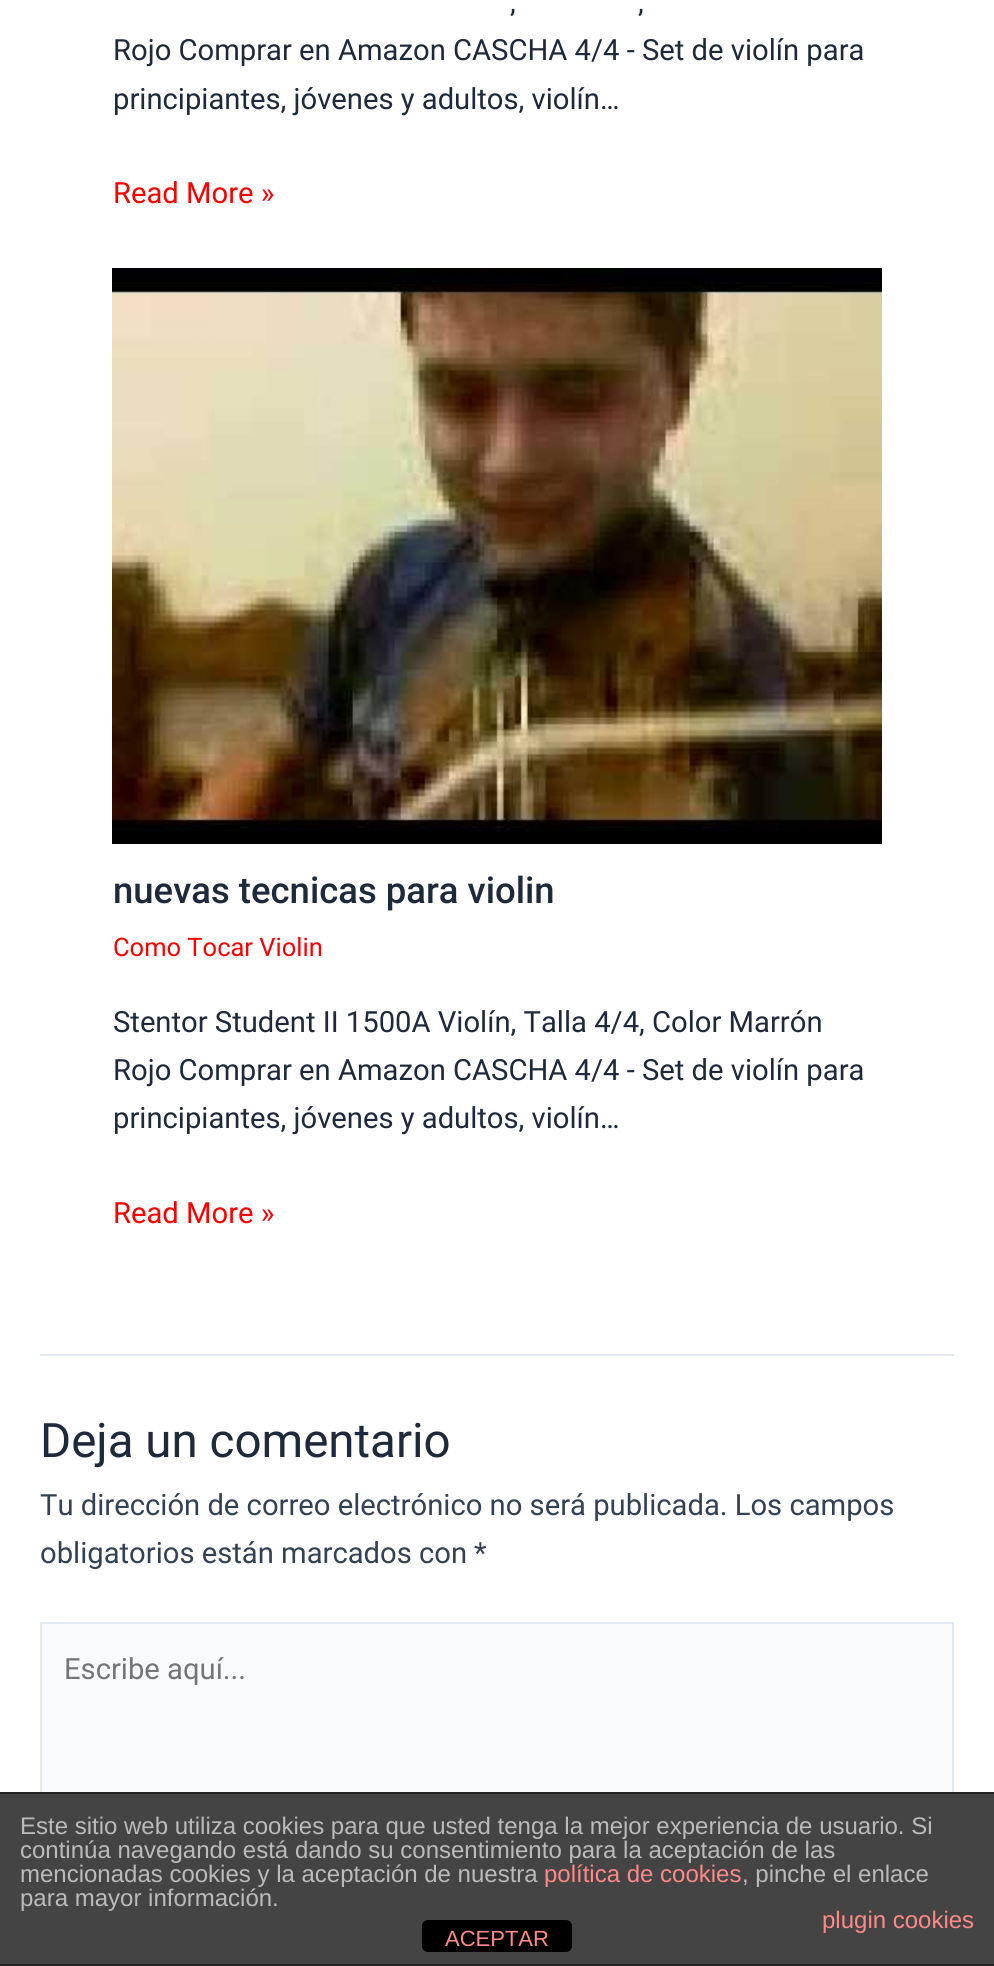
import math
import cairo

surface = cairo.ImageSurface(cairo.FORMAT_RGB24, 994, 1966)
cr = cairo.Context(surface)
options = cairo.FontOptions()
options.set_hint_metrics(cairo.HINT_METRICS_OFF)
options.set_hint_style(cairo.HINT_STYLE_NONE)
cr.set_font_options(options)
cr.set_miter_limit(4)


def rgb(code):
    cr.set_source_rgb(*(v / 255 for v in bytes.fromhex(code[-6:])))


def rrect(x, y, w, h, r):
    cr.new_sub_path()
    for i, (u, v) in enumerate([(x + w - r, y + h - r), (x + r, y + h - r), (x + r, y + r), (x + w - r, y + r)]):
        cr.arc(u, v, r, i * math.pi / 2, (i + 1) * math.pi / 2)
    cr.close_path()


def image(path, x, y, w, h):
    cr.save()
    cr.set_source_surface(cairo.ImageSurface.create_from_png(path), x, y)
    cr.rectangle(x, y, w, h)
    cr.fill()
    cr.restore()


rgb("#ffffff")
cr.paint()
image("img/1.png", 112, 268, 770, 576)
rgb("#e2e8f0")
cr.rectangle(40, 1354, 914, 2)
cr.fill()
rgb("#f9fafb")
cr.rectangle(42, 1624, 910, 168)
cr.fill()
cr.rectangle(41, 1623, 912, 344)
rgb("#e2e8f0")
cr.stroke()
for x, y, w, h, color in [
    (0, 1794, 994, 170, "#444444"),
    (0, 1792, 994, 2, "#222222"),
    (0, 1964, 994, 2, "#222222"),
]:
    rgb(color)
    cr.rectangle(x, y, w, h)
    cr.fill()
rgb("#000000")
rrect(422, 1920, 150, 32, 6)
cr.fill()
cr.select_font_face("Roboto")
cr.set_font_size(29.2)
rgb("#1e293b")
for x, y, s in [
    (510, 12, ","),
    (638, 12, ","),
    (113, 60, "Rojo Comprar en Amazon CASCHA 4/4 - Set de violín para"),
    (113, 109, "principiantes, jóvenes y adultos, violín…"),
]:
    cr.move_to(x, y)
    cr.show_text(s)
rgb("#ff0000")
cr.move_to(113, 203)
cr.show_text("Read More »")
cr.select_font_face("Roboto Medium")
cr.set_font_size(36.5)
rgb("#1e293b")
cr.move_to(113, 903)
cr.show_text("nuevas tecnicas para violin")
cr.select_font_face("Roboto")
cr.set_font_size(25.5)
rgb("#ff0000")
cr.move_to(113, 956)
cr.show_text("Como Tocar Violin")
cr.set_font_size(29.2)
rgb("#1e293b")
for x, y, s in [
    (113, 1032, "Stentor Student II 1500A Violín, Talla 4/4, Color Marrón"),
    (113, 1080, "Rojo Comprar en Amazon CASCHA 4/4 - Set de violín para"),
    (113, 1128, "principiantes, jóvenes y adultos, violín…"),
]:
    cr.move_to(x, y)
    cr.show_text(s)
rgb("#ff0000")
cr.move_to(113, 1223)
cr.show_text("Read More »")
cr.set_font_size(47.5)
rgb("#1e293b")
cr.move_to(40, 1457)
cr.show_text("Deja un comentario")
cr.set_font_size(29.2)
rgb("#334155")
for x, y, s in [
    (40, 1515, "Tu dirección de correo electrónico no será publicada. Los campos"),
    (40, 1563, "obligatorios están marcados con"),
    (474, 1563, "*"),
]:
    cr.move_to(x, y)
    cr.show_text(s)
rgb("#757575")
cr.move_to(64, 1679)
cr.show_text("Escribe aquí...")
cr.select_font_face("Liberation Sans")
cr.set_font_size(24)
rgb("#bbbbbb")
for x, y, s in [
    (20, 1834, "Este sitio web utiliza cookies para que usted tenga la mejor experiencia de usuario. Si"),
    (20, 1858, "continúa navegando está dando su consentimiento para la aceptación de las"),
    (20, 1882, "mencionadas cookies y la aceptación de nuestra"),
]:
    cr.move_to(x, y)
    cr.show_text(s)
rgb("#ff8888")
cr.move_to(544, 1882)
cr.show_text("política de cookies")
rgb("#bbbbbb")
cr.move_to(742, 1882)
cr.show_text(", pinche el enlace")
cr.move_to(20, 1906)
cr.show_text("para mayor información.")
rgb("#ff8888")
cr.move_to(822, 1928)
cr.show_text("plugin cookies")
cr.set_font_size(22)
cr.move_to(445, 1946)
cr.show_text("ACEPTAR")
surface.write_to_png("page.png")
